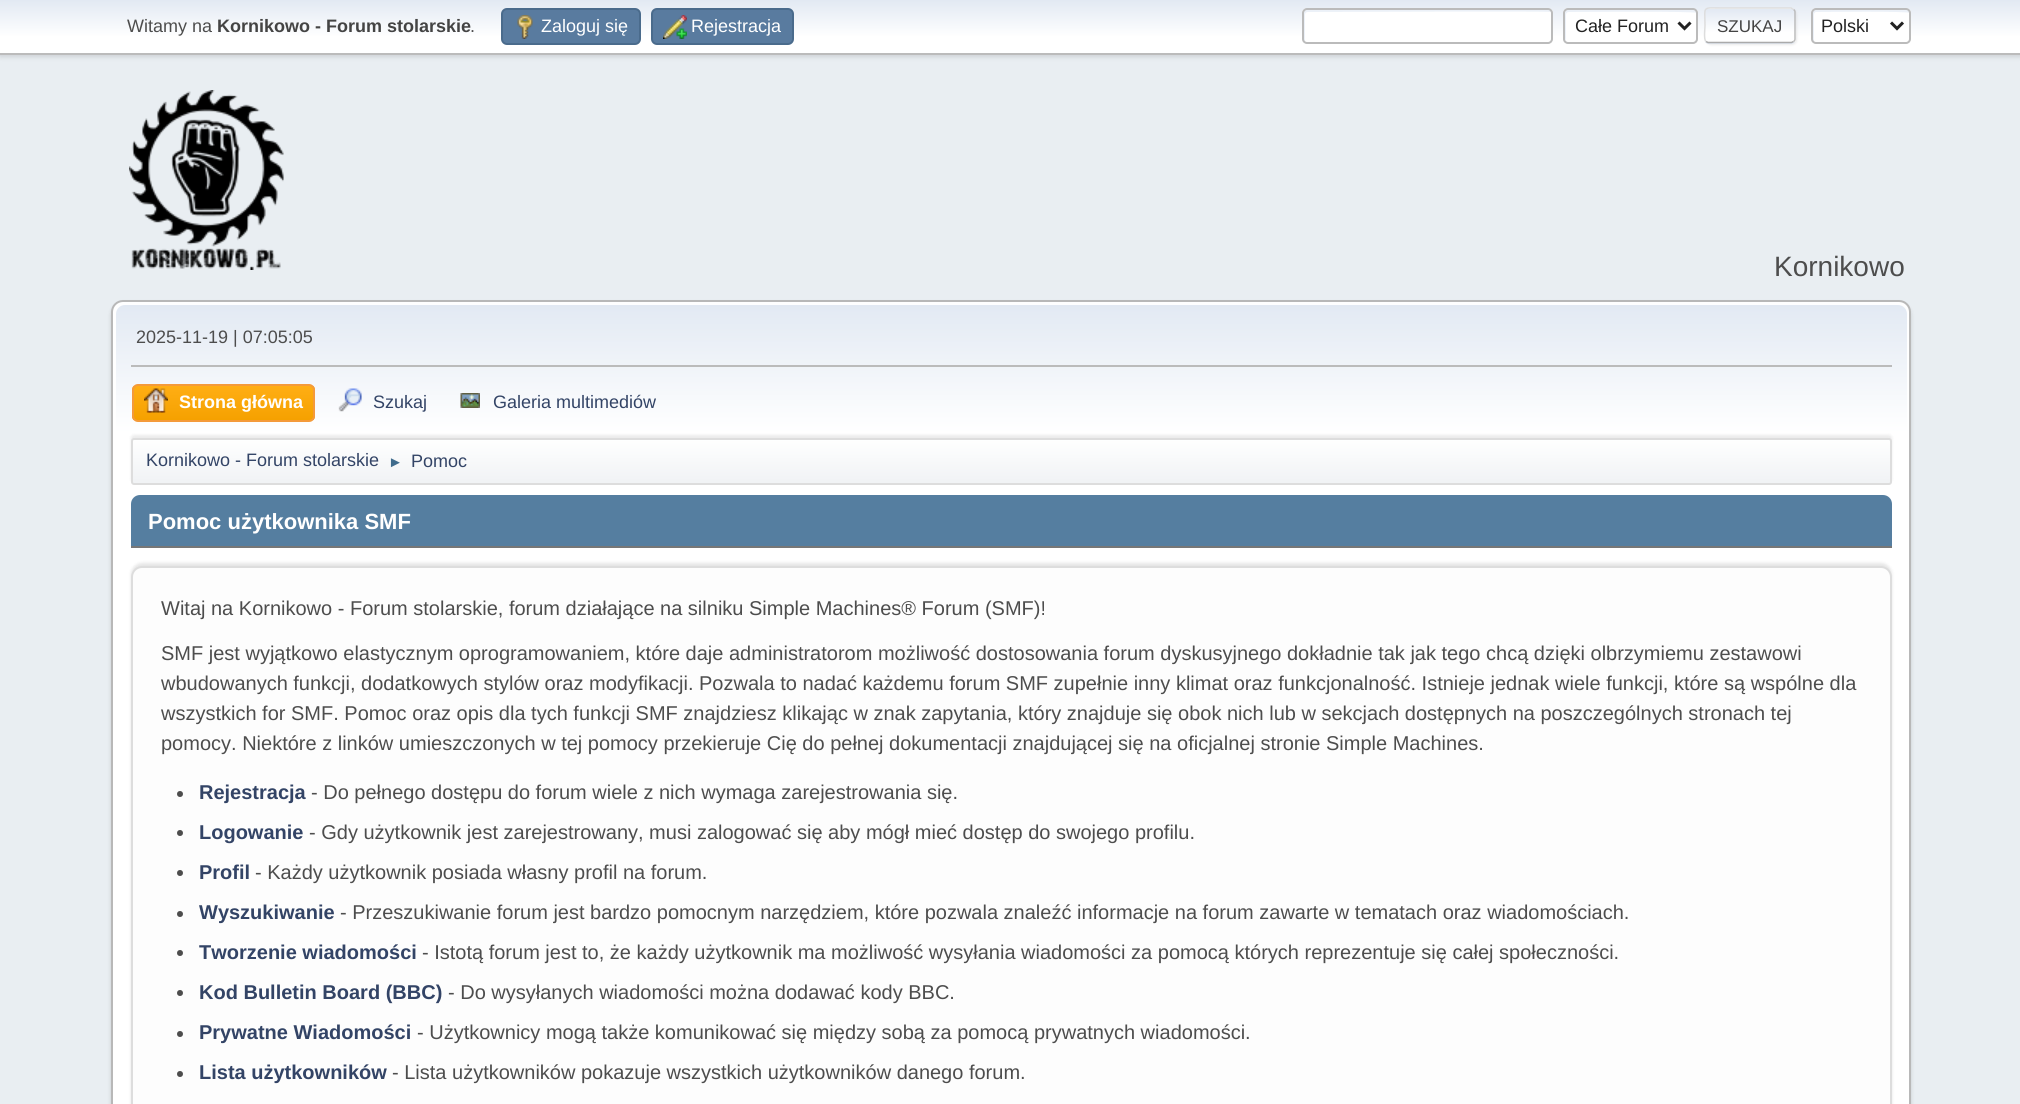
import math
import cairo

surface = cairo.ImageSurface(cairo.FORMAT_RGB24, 2020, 1104)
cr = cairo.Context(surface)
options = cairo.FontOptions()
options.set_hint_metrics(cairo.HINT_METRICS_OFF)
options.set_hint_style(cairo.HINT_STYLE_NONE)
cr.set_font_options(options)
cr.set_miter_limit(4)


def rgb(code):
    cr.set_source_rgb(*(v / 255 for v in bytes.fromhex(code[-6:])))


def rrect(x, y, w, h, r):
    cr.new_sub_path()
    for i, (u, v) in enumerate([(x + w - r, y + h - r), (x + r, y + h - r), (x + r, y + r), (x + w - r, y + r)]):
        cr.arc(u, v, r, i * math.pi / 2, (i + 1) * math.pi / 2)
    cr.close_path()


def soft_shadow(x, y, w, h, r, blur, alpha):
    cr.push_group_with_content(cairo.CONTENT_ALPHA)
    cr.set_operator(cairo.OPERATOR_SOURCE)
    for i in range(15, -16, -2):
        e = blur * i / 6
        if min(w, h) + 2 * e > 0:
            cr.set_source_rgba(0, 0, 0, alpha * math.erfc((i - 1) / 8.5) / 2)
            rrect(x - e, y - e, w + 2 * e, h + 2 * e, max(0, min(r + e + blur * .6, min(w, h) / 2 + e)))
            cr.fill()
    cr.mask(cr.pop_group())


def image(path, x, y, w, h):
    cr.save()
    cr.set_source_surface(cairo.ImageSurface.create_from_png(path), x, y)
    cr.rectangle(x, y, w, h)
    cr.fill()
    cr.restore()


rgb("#e9eef2")
cr.paint()
rgb("#000000")
soft_shadow(0, 2, 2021, 54, 0, 3, 0.16)
gradient = cairo.LinearGradient(1010, 0, 1010, 53)
gradient.add_color_stop_rgba(0, 0.886, 0.914, 0.953, 1)
gradient.add_color_stop_rgba(0.7, 1, 1, 1, 1)
cr.set_source(gradient)
cr.rectangle(0, 0, 2020, 53)
cr.fill()
rgb("#bbbbbb")
cr.rectangle(0, 53, 2020, 2)
cr.fill()
rgb("#597b9f")
rrect(502, 9, 138, 35, 5)
cr.fill_preserve()
rgb("#4a6b8c")
cr.stroke()
image("img/1.png", 517, 15, 16, 24)
rgb("#597b9f")
rrect(652, 9, 141, 35, 5)
cr.fill_preserve()
rgb("#4a6b8c")
cr.stroke()
image("img/2.png", 663, 15, 24, 24)
rgb("#ffffff")
rrect(1302, 8, 251, 36, 5)
cr.fill()
rgb("#ecf1f8")
cr.new_path()
cr.move_to(1308, 12)
cr.curve_to(1330, 12, 1550, 11, 1551, 12)
cr.curve_to(1551, 10, 1550, 9, 1548, 9)
cr.line_to(1307, 9)
cr.curve_to(1305, 9, 1304, 10, 1304, 12)
cr.line_to(1304, 39)
cr.curve_to(1304, 40, 1304, 41, 1305, 41)
cr.line_to(1305, 15)
cr.curve_to(1305, 13, 1306, 12, 1308, 12)
cr.close_path()
cr.fill()
rrect(1303, 9, 249, 34, 4)
rgb("#bbbbbb")
cr.stroke()
rgb("#ffffff")
rrect(1563, 8, 135, 36, 5)
cr.fill()
rgb("#ecf1f8")
cr.new_path()
cr.move_to(1569, 12)
cr.curve_to(1582, 12, 1695, 11, 1697, 13)
cr.curve_to(1697, 11, 1696, 9, 1695, 9)
cr.line_to(1589, 9)
cr.curve_to(1562, 9, 1565, 4, 1565, 26)
cr.curve_to(1565, 28, 1564, 39, 1566, 41)
cr.line_to(1566, 15)
cr.curve_to(1566, 13, 1567, 12, 1569, 12)
cr.close_path()
cr.fill()
rrect(1564, 9, 133, 34, 4)
rgb("#bbbbbb")
cr.stroke()
cr.new_path()
cr.move_to(1678.5, 22.5)
cr.line_to(1684.5, 28.5)
cr.line_to(1690.5, 22.5)
rgb("#222222")
cr.set_line_width(3)
cr.stroke()
rgb("#dddddd")
soft_shadow(1706, 9, 91, 36, 5, 1, 0.57)
cr.save()
rrect(1704, 8, 92, 36, 5)
cr.clip()
gradient = cairo.LinearGradient(1750, -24, 1750, 9)
gradient.add_color_stop_rgba(0, 0.886, 0.914, 0.953, 1)
gradient.add_color_stop_rgba(0.7, 1, 1, 1, 1)
cr.set_source(gradient)
cr.rectangle(1704, 8, 92, 1)
cr.fill()
gradient = cairo.LinearGradient(1750, 9, 1750, 42)
gradient.add_color_stop_rgba(0, 0.886, 0.914, 0.953, 1)
gradient.add_color_stop_rgba(0.7, 1, 1, 1, 1)
cr.set_source(gradient)
cr.rectangle(1704, 9, 92, 33)
cr.fill()
gradient = cairo.LinearGradient(1750, 42, 1750, 75)
gradient.add_color_stop_rgba(0, 0.886, 0.914, 0.953, 1)
gradient.add_color_stop_rgba(0.7, 1, 1, 1, 1)
cr.set_source(gradient)
cr.rectangle(1704, 42, 92, 2)
cr.fill()
cr.restore()
cr.new_path()
cr.move_to(1793.5, 9.5)
cr.curve_to(1794.5, 10, 1795, 11, 1795, 12)
cr.line_to(1795, 39)
cr.curve_to(1795, 40, 1794.5, 41, 1793.5, 41.5)
rgb("#bbbbbb")
cr.set_line_width(1.5)
cr.stroke()
cr.new_path()
cr.move_to(1793.5, 41.5)
cr.line_to(1791.5, 42.5)
cr.line_to(1708, 42.5)
cr.line_to(1706, 41.5)
rgb("#aaaaaa")
cr.stroke()
cr.new_path()
cr.move_to(1706, 41.5)
cr.curve_to(1703.5, 39.5, 1705, 28.5, 1705, 25.5)
cr.curve_to(1705, 5.5, 1701.5, 8, 1722, 8)
cr.line_to(1791, 8)
cr.line_to(1793.5, 9.5)
rgb("#dddddd")
cr.stroke()
rgb("#ffffff")
rrect(1811, 8, 100, 36, 5)
cr.fill()
rgb("#ecf1f8")
cr.new_path()
cr.move_to(1816, 12)
cr.curve_to(1826, 12, 1908, 11, 1910, 13)
cr.line_to(1910, 12)
cr.curve_to(1910, 10, 1909, 9, 1907, 9)
cr.line_to(1815, 9)
cr.curve_to(1813, 9, 1812, 10, 1812, 12)
cr.line_to(1812, 39)
cr.curve_to(1812, 40, 1813, 41, 1814, 42)
cr.line_to(1814, 15)
cr.curve_to(1814, 13, 1815, 12, 1816, 12)
cr.close_path()
cr.fill()
rrect(1812, 9, 98, 34, 4)
rgb("#bbbbbb")
cr.set_line_width(2)
cr.stroke()
cr.new_path()
cr.move_to(1891, 22.5)
cr.line_to(1897, 28.5)
cr.line_to(1903, 22.5)
rgb("#222222")
cr.set_line_width(3)
cr.stroke()
image("img/3.png", 129, 90, 155, 180)
rgb("#000000")
soft_shadow(111, 303, 1800, 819, 12, 2, 0.14)
rgb("#ffffff")
rrect(112, 301, 1798, 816, 11)
cr.fill_preserve()
rgb("#b8b8b8")
cr.set_line_width(2)
cr.stroke()
gradient = cairo.LinearGradient(1011, 304, 1011, 488)
gradient.add_color_stop_rgba(0, 0.886, 0.914, 0.953, 1)
gradient.add_color_stop_rgba(0.7, 1, 1, 1, 1)
cr.set_source(gradient)
cr.new_path()
cr.move_to(125, 305)
cr.line_to(1898, 305)
cr.curve_to(1903, 305, 1907, 309, 1907, 314)
cr.line_to(1907, 488)
cr.line_to(116, 488)
cr.line_to(116, 314)
cr.curve_to(116, 309, 120, 305, 125, 305)
cr.close_path()
cr.fill()
rgb("#bbbbbb")
cr.rectangle(131, 365, 1761, 2)
cr.fill()
cr.save()
rrect(132, 384, 183, 38, 6)
cr.clip()
gradient = cairo.LinearGradient(224, 386, 224, 420)
gradient.add_color_stop_rgba(0, 1, 0.682, 0.078, 1)
gradient.add_color_stop_rgba(1, 0.961, 0.631, 0, 1)
cr.set_source(gradient)
cr.rectangle(132, 386, 183, 34)
cr.fill()
cr.restore()
rrect(133, 385, 181, 36, 5)
rgb("#f49a3a")
cr.stroke()
image("img/4.png", 144, 388, 24, 25)
image("img/5.png", 338, 388, 24, 24)
image("img/6.png", 460, 393, 20, 15)
rgb("#000000")
soft_shadow(131, 435, 1761, 47, 3, 1.5, 0.08)
cr.save()
rrect(131, 438, 1761, 47, 3)
cr.clip()
gradient = cairo.LinearGradient(1011, 439, 1011, 483)
gradient.add_color_stop_rgba(0, 1, 1, 1, 1)
gradient.add_color_stop_rgba(0.95, 0.945, 0.953, 0.961, 1)
cr.set_source(gradient)
cr.rectangle(131, 440, 1761, 43)
cr.fill()
cr.restore()
rrect(132, 439, 1759, 45, 2)
rgb("#dddddd")
cr.stroke()
rgb("#557ea0")
cr.new_path()
cr.move_to(140, 495)
cr.line_to(1883, 495)
cr.curve_to(1888, 495, 1892, 499, 1892, 504)
cr.line_to(1892, 548)
cr.line_to(131, 548)
cr.line_to(131, 504)
cr.curve_to(131, 499, 135, 495, 140, 495)
cr.close_path()
cr.fill()
rgb("#777777")
cr.rectangle(131, 546, 1761, 2)
cr.fill()
rgb("#000000")
soft_shadow(131, 563, 1761, 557, 11, 1.5, 0.1)
rgb("#fdfdfd")
rrect(132, 567, 1759, 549, 10)
cr.fill_preserve()
rgb("#dddddd")
cr.stroke()
rgb("#4d4d4d")
cr.arc(180, 794, 3, 0, 2 * math.pi)
cr.fill()
cr.arc(180, 833, 3, 0, 2 * math.pi)
cr.fill()
cr.arc(180, 873, 3, 0, 2 * math.pi)
cr.fill()
cr.arc(180, 914, 3, 0, 2 * math.pi)
cr.fill()
cr.arc(180, 953, 3, 0, 2 * math.pi)
cr.fill()
cr.arc(180, 993, 3, 0, 2 * math.pi)
cr.fill()
cr.arc(180, 1034, 3, 0, 2 * math.pi)
cr.fill()
cr.arc(180, 1074, 3, 0, 2 * math.pi)
cr.fill()
cr.select_font_face("Liberation Sans")
cr.set_font_size(18)
cr.move_to(127, 32)
cr.show_text("Witamy na")
cr.select_font_face("Liberation Sans", cairo.FONT_SLANT_NORMAL, cairo.FONT_WEIGHT_BOLD)
rgb("#444444")
cr.move_to(217, 32)
cr.show_text("Kornikowo - Forum stolarskie")
cr.select_font_face("Liberation Sans")
rgb("#4d4d4d")
cr.move_to(470, 32)
cr.show_text(".")
rgb("#ffffff")
cr.move_to(541, 32)
cr.show_text("Zaloguj się")
cr.move_to(691, 32)
cr.show_text("Rejestracja")
rgb("#222222")
cr.move_to(1575, 32)
cr.show_text("Całe Forum")
cr.set_font_size(17)
rgb("#444444")
cr.move_to(1717, 32)
cr.show_text("SZUKAJ")
cr.set_font_size(18)
rgb("#222222")
cr.move_to(1821, 32)
cr.show_text("Polski")
cr.set_font_size(28)
rgb("#4d4d4d")
cr.move_to(1774, 276)
cr.show_text("Kornikowo")
cr.set_font_size(18)
cr.move_to(136, 343)
cr.show_text("2025-11-19 | 07:05:05")
cr.select_font_face("Liberation Sans", cairo.FONT_SLANT_NORMAL, cairo.FONT_WEIGHT_BOLD)
rgb("#ffffff")
cr.move_to(179, 408)
cr.show_text("Strona główna")
cr.select_font_face("Liberation Sans")
rgb("#334466")
for x, y, s in [
    (373, 408, "Szukaj"),
    (493, 408, "Galeria multimediów"),
    (146, 466, "Kornikowo - Forum stolarskie"),
]:
    cr.move_to(x, y)
    cr.show_text(s)
cr.set_font_size(15)
rgb("#3f6b8c")
cr.move_to(388, 467)
cr.show_text("►")
cr.set_font_size(18)
rgb("#334466")
cr.move_to(411, 467)
cr.show_text("Pomoc")
cr.select_font_face("Liberation Sans", cairo.FONT_SLANT_NORMAL, cairo.FONT_WEIGHT_BOLD)
cr.set_font_size(22)
rgb("#ffffff")
cr.move_to(148, 529)
cr.show_text("Pomoc użytkownika SMF")
cr.select_font_face("Liberation Sans")
cr.set_font_size(20)
rgb("#4d4d4d")
for x, y, s in [
    (161, 615, "Witaj na Kornikowo - Forum stolarskie, forum działające na silniku Simple Machines® Forum (SMF)!"),
    (161, 660, "SMF jest wyjątkowo elastycznym oprogramowaniem, które daje administratorom możliwość dostosowania forum dyskusyjnego dokładnie tak jak tego chcą dzięki olbrzymiemu zestawowi"),
    (161, 690, "wbudowanych funkcji, dodatkowych stylów oraz modyfikacji. Pozwala to nadać każdemu forum SMF zupełnie inny klimat oraz funkcjonalność. Istnieje jednak wiele funkcji, które są wspólne dla"),
    (161, 720, "wszystkich for SMF. Pomoc oraz opis dla tych funkcji SMF znajdziesz klikając w znak zapytania, który znajduje się obok nich lub w sekcjach dostępnych na poszczególnych stronach tej"),
    (161, 750, "pomocy. Niektóre z linków umieszczonych w tej pomocy przekieruje Cię do pełnej dokumentacji znajdującej się na oficjalnej stronie Simple Machines."),
]:
    cr.move_to(x, y)
    cr.show_text(s)
cr.select_font_face("Liberation Sans", cairo.FONT_SLANT_NORMAL, cairo.FONT_WEIGHT_BOLD)
rgb("#334466")
cr.move_to(199, 799)
cr.show_text("Rejestracja")
cr.select_font_face("Liberation Sans")
rgb("#4d4d4d")
cr.move_to(311, 799)
cr.show_text("- Do pełnego dostępu do forum wiele z nich wymaga zarejestrowania się.")
cr.select_font_face("Liberation Sans", cairo.FONT_SLANT_NORMAL, cairo.FONT_WEIGHT_BOLD)
rgb("#334466")
cr.move_to(199, 839)
cr.show_text("Logowanie")
cr.select_font_face("Liberation Sans")
rgb("#4d4d4d")
cr.move_to(309, 839)
cr.show_text("- Gdy użytkownik jest zarejestrowany, musi zalogować się aby mógł mieć dostęp do swojego profilu.")
cr.select_font_face("Liberation Sans", cairo.FONT_SLANT_NORMAL, cairo.FONT_WEIGHT_BOLD)
rgb("#334466")
cr.move_to(199, 879)
cr.show_text("Profil")
cr.select_font_face("Liberation Sans")
rgb("#4d4d4d")
cr.move_to(255, 879)
cr.show_text("- Każdy użytkownik posiada własny profil na forum.")
cr.select_font_face("Liberation Sans", cairo.FONT_SLANT_NORMAL, cairo.FONT_WEIGHT_BOLD)
rgb("#334466")
cr.move_to(199, 919)
cr.show_text("Wyszukiwanie")
cr.select_font_face("Liberation Sans")
rgb("#4d4d4d")
cr.move_to(340, 919)
cr.show_text("- Przeszukiwanie forum jest bardzo pomocnym narzędziem, które pozwala znaleźć informacje na forum zawarte w tematach oraz wiadomościach.")
cr.select_font_face("Liberation Sans", cairo.FONT_SLANT_NORMAL, cairo.FONT_WEIGHT_BOLD)
rgb("#334466")
cr.move_to(199, 959)
cr.show_text("Tworzenie wiadomości")
cr.select_font_face("Liberation Sans")
rgb("#4d4d4d")
cr.move_to(422, 959)
cr.show_text("- Istotą forum jest to, że każdy użytkownik ma możliwość wysyłania wiadomości za pomocą których reprezentuje się całej społeczności.")
cr.select_font_face("Liberation Sans", cairo.FONT_SLANT_NORMAL, cairo.FONT_WEIGHT_BOLD)
rgb("#334466")
cr.move_to(199, 999)
cr.show_text("Kod Bulletin Board (BBC)")
cr.select_font_face("Liberation Sans")
rgb("#4d4d4d")
cr.move_to(448, 999)
cr.show_text("- Do wysyłanych wiadomości można dodawać kody BBC.")
cr.select_font_face("Liberation Sans", cairo.FONT_SLANT_NORMAL, cairo.FONT_WEIGHT_BOLD)
rgb("#334466")
cr.move_to(199, 1039)
cr.show_text("Prywatne Wiadomości")
cr.select_font_face("Liberation Sans")
rgb("#4d4d4d")
cr.move_to(417, 1039)
cr.show_text("- Użytkownicy mogą także komunikować się między sobą za pomocą prywatnych wiadomości.")
cr.select_font_face("Liberation Sans", cairo.FONT_SLANT_NORMAL, cairo.FONT_WEIGHT_BOLD)
rgb("#334466")
cr.move_to(199, 1079)
cr.show_text("Lista użytkowników")
cr.select_font_face("Liberation Sans")
rgb("#4d4d4d")
cr.move_to(392, 1079)
cr.show_text("- Lista użytkowników pokazuje wszystkich użytkowników danego forum.")
surface.write_to_png("page.png")
